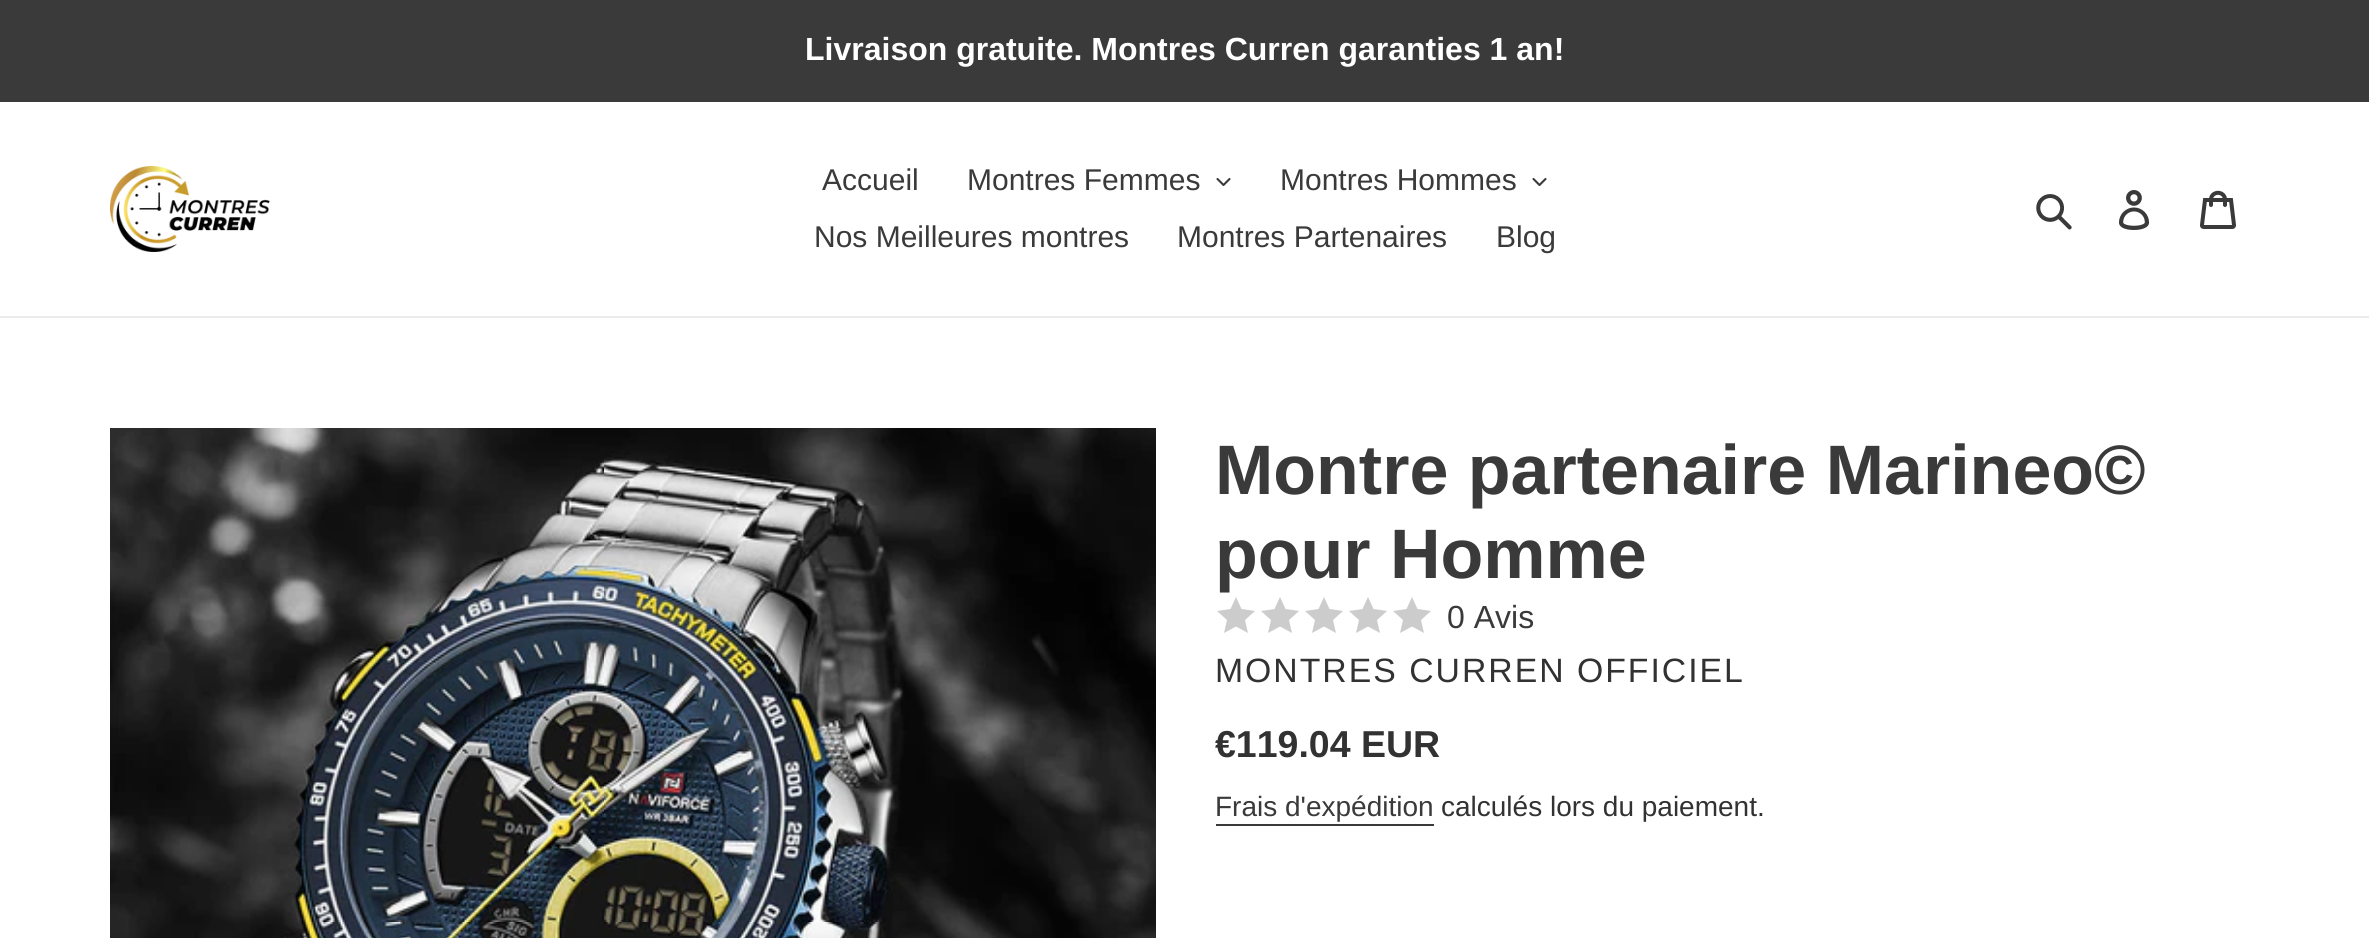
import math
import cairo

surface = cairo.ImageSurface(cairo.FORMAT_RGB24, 2369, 938)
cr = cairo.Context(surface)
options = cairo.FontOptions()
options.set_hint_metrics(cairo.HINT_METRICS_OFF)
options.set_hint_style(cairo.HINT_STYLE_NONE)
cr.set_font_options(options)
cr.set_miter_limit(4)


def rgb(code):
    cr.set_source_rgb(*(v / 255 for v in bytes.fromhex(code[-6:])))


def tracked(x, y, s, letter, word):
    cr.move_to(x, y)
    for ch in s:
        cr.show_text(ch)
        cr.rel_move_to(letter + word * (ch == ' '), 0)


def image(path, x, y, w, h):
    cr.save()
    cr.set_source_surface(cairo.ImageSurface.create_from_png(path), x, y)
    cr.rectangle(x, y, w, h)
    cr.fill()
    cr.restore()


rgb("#ffffff")
cr.paint()
rgb("#3a3a3a")
cr.rectangle(0, 0, 2369, 102)
cr.fill()
rgb("#ebebeb")
cr.rectangle(0, 316, 2369, 2)
cr.fill()
image("img/1.png", 110, 166, 160, 86)
image("img/2.png", 1216, 178, 15, 8)
image("img/2.png", 1532, 178, 15, 8)
image("img/3.png", 2036, 194, 36, 36)
image("img/4.png", 2119, 190, 31, 40)
image("img/5.png", 2200, 190, 36, 39)
image("img/6.png", 110, 428, 1046, 510)
rgb("#cccccc")
cr.new_path()
cr.move_to(1236, 597)
cr.line_to(1241.5, 609)
cr.line_to(1255, 611)
cr.line_to(1245, 620)
cr.line_to(1248, 633)
cr.line_to(1236, 626.5)
cr.line_to(1224, 633)
cr.line_to(1227, 620)
cr.line_to(1217, 611)
cr.line_to(1230.5, 609)
cr.close_path()
cr.fill()
cr.new_path()
cr.move_to(1280, 597)
cr.line_to(1285.5, 609)
cr.line_to(1299, 611)
cr.line_to(1289, 620)
cr.line_to(1292, 633)
cr.line_to(1280, 626.5)
cr.line_to(1268, 633)
cr.line_to(1271, 620)
cr.line_to(1261, 611)
cr.line_to(1274.5, 609)
cr.close_path()
cr.fill()
cr.new_path()
cr.move_to(1324, 597)
cr.line_to(1329.5, 609)
cr.line_to(1343, 611)
cr.line_to(1333, 620)
cr.line_to(1336, 633)
cr.line_to(1324, 626.5)
cr.line_to(1312, 633)
cr.line_to(1315, 620)
cr.line_to(1305, 611)
cr.line_to(1318.5, 609)
cr.close_path()
cr.fill()
cr.new_path()
cr.move_to(1368, 597)
cr.line_to(1373.5, 609)
cr.line_to(1387, 611)
cr.line_to(1377, 620)
cr.line_to(1380, 633)
cr.line_to(1368, 626.5)
cr.line_to(1356, 633)
cr.line_to(1359, 620)
cr.line_to(1349, 611)
cr.line_to(1362.5, 609)
cr.close_path()
cr.fill()
cr.new_path()
cr.move_to(1412, 597)
cr.line_to(1417.5, 609)
cr.line_to(1431, 611)
cr.line_to(1421, 620)
cr.line_to(1424, 633)
cr.line_to(1412, 626.5)
cr.line_to(1400, 633)
cr.line_to(1403, 620)
cr.line_to(1393, 611)
cr.line_to(1406.5, 609)
cr.close_path()
cr.fill()
rgb("#3a3a3a")
cr.rectangle(1216, 824, 218, 2)
cr.fill()
cr.select_font_face("Liberation Sans", cairo.FONT_SLANT_NORMAL, cairo.FONT_WEIGHT_BOLD)
cr.set_font_size(32)
rgb("#ffffff")
cr.move_to(805, 60)
cr.show_text("Livraison gratuite. Montres Curren garanties 1 an!")
cr.select_font_face("Liberation Sans")
cr.set_font_size(30)
rgb("#3a3a3a")
for x, y, s in [
    (822, 190, "Accueil"),
    (967, 190, "Montres Femmes"),
    (1280, 190, "Montres Hommes"),
    (814, 247, "Nos Meilleures montres"),
    (1177, 247, "Montres Partenaires"),
    (1496, 247, "Blog"),
]:
    cr.move_to(x, y)
    cr.show_text(s)
cr.select_font_face("Liberation Sans", cairo.FONT_SLANT_NORMAL, cairo.FONT_WEIGHT_BOLD)
cr.set_font_size(70)
cr.move_to(1215, 494)
cr.show_text("Montre partenaire Marineo©")
cr.move_to(1215, 578)
cr.show_text("pour Homme")
cr.select_font_face("Liberation Sans")
cr.set_font_size(32)
cr.move_to(1447, 628)
cr.show_text("0 Avis")
cr.set_font_size(33.75)
rgb("#333232")
tracked(1215, 682, "MONTRES CURREN OFFICIEL", 2, 0)
cr.select_font_face("Liberation Sans", cairo.FONT_SLANT_NORMAL, cairo.FONT_WEIGHT_BOLD)
cr.set_font_size(37.5)
cr.move_to(1215, 757)
cr.show_text("€119.04 EUR")
cr.select_font_face("Liberation Sans")
cr.set_font_size(28)
rgb("#3a3a3a")
cr.move_to(1215, 816)
cr.show_text("Frais d'expédition")
rgb("#333232")
cr.move_to(1441, 816)
cr.show_text("calculés lors du paiement.")
surface.write_to_png("page.png")
